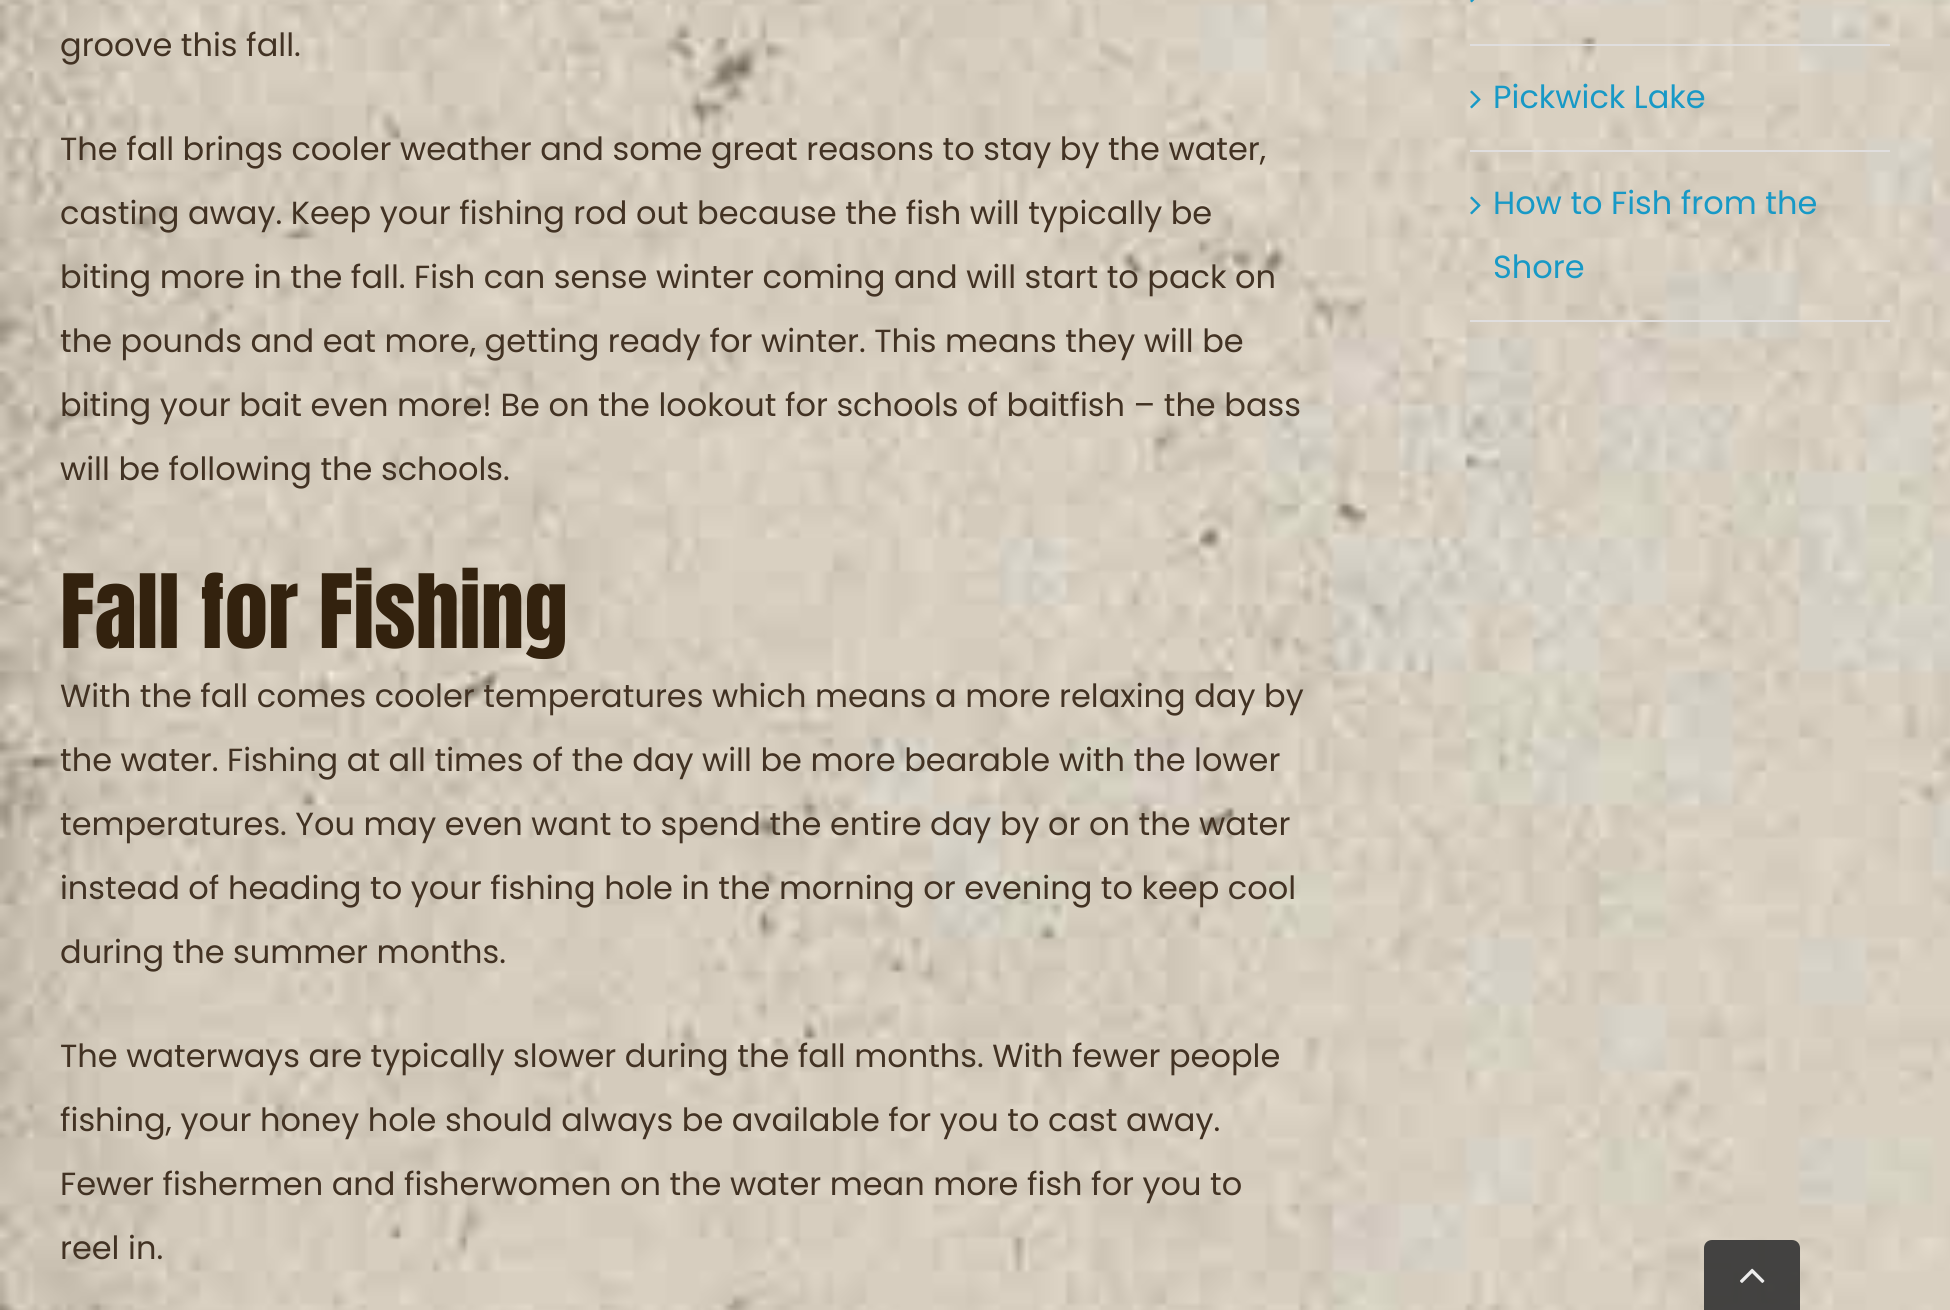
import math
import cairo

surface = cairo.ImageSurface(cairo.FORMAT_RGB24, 1950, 1310)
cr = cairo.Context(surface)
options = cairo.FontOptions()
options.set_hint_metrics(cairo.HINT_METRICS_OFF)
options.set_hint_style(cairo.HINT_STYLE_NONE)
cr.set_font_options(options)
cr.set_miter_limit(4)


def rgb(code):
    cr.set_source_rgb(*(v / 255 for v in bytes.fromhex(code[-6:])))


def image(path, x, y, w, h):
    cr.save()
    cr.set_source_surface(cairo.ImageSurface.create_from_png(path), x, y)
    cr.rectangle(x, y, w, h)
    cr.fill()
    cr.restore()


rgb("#ffffff")
cr.paint()
image("img/1.png", 0, 0, 1950, 1310)
rgb("#e0dede")
cr.rectangle(1470, 44, 420, 2)
cr.fill()
image("img/2.png", 1470, 0, 5, 3)
cr.rectangle(1470, 150, 420, 2)
cr.fill()
image("img/3.png", 1470, 90, 11, 19)
cr.rectangle(1470, 320, 420, 2)
cr.fill()
image("img/4.png", 1470, 196, 11, 19)
cr.set_source_rgba(0.2, 0.2, 0.2, 0.9)
cr.new_path()
cr.move_to(1712, 1240)
cr.line_to(1792, 1240)
cr.curve_to(1796.5, 1240, 1800, 1243.5, 1800, 1248)
cr.line_to(1800, 1310)
cr.line_to(1704, 1310)
cr.line_to(1704, 1248)
cr.curve_to(1704, 1243.5, 1707.5, 1240, 1712, 1240)
cr.close_path()
cr.fill()
image("img/5.png", 1740, 1268, 25, 15)
cr.select_font_face("Poppins")
cr.set_font_size(32)
rgb("#423223")
for x, y, s in [
    (60, 56, "groove this fall."),
    (60, 160, "The fall brings cooler weather and some great reasons to stay by the water,"),
    (60, 224, "casting away. Keep your fishing rod out because the fish will typically be"),
    (60, 288, "biting more in the fall. Fish can sense winter coming and will start to pack on"),
    (60, 352, "the pounds and eat more, getting ready for winter. This means they will be"),
    (60, 416, "biting your bait even more! Be on the lookout for schools of baitfish – the bass"),
    (60, 480, "will be following the schools."),
]:
    cr.move_to(x, y)
    cr.show_text(s)
cr.select_font_face("Anton")
cr.set_font_size(87)
rgb("#33220e")
cr.move_to(60, 648)
cr.show_text("Fall for Fishing")
cr.select_font_face("Poppins")
cr.set_font_size(32)
rgb("#423223")
for x, y, s in [
    (60, 707, "With the fall comes cooler temperatures which means a more relaxing day by"),
    (60, 771, "the water. Fishing at all times of the day will be more bearable with the lower"),
    (60, 835, "temperatures. You may even want to spend the entire day by or on the water"),
    (60, 899, "instead of heading to your fishing hole in the morning or evening to keep cool"),
    (60, 963, "during the summer months."),
    (60, 1067, "The waterways are typically slower during the fall months. With fewer people"),
    (60, 1131, "fishing, your honey hole should always be available for you to cast away."),
    (60, 1195, "Fewer fishermen and fisherwomen on the water mean more fish for you to"),
    (60, 1259, "reel in."),
]:
    cr.move_to(x, y)
    cr.show_text(s)
rgb("#1899c6")
for x, y, s in [
    (1493, 108, "Pickwick Lake"),
    (1493, 214, "How to Fish from the"),
    (1493, 278, "Shore"),
]:
    cr.move_to(x, y)
    cr.show_text(s)
surface.write_to_png("page.png")
